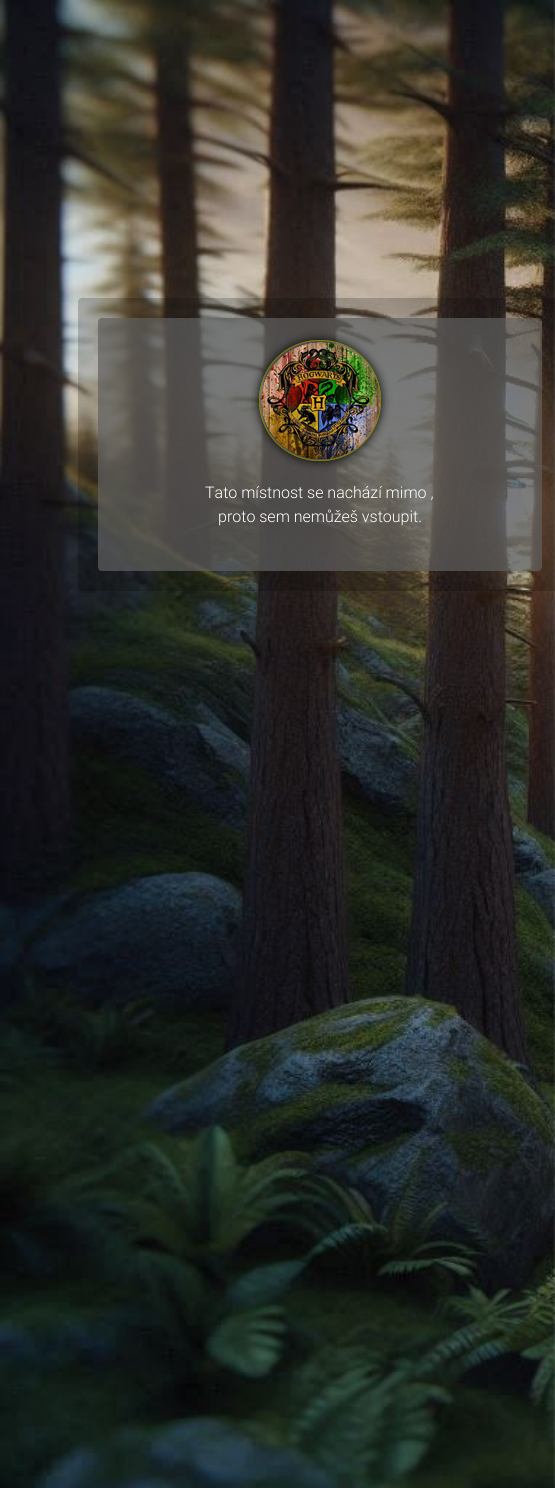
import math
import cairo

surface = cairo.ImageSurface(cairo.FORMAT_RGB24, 555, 1488)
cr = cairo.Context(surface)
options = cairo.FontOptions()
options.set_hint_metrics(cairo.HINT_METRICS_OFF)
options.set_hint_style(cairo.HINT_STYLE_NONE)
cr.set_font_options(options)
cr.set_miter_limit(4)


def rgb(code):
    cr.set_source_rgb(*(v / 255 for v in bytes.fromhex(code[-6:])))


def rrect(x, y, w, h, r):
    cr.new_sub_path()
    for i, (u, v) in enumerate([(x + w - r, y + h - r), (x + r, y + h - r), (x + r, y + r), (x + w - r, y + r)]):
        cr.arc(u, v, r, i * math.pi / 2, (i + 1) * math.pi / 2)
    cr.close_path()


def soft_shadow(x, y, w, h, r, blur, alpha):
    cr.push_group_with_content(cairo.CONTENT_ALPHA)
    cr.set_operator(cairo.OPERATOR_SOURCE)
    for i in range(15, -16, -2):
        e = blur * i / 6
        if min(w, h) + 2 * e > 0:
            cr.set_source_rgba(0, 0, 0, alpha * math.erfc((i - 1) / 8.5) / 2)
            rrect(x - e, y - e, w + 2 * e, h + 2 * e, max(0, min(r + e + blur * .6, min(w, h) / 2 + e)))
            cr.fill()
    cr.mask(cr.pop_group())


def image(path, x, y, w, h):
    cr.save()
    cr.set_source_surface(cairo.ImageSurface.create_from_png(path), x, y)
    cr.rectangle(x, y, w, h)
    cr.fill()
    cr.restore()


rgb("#ffffff")
cr.paint()
image("img/1.png", 0, 0, 555, 1488)
cr.set_source_rgba(0, 0, 0, 0.2)
rrect(78, 298, 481, 293, 4)
cr.fill()
cr.set_source_rgba(0.376, 0.376, 0.376, 0.7)
rrect(98, 318, 444, 253, 4)
cr.fill()
cr.save()
cr.set_fill_rule(cairo.FILL_RULE_EVEN_ODD)
cr.new_path()
cr.move_to(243, 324)
cr.line_to(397, 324)
cr.line_to(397, 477)
cr.line_to(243, 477)
cr.close_path()
cr.move_to(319, 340)
cr.line_to(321, 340)
cr.curve_to(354, 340, 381, 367, 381, 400)
cr.line_to(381, 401)
cr.curve_to(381, 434, 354, 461, 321, 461)
cr.line_to(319, 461)
cr.curve_to(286, 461, 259, 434, 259, 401)
cr.line_to(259, 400)
cr.curve_to(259, 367, 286, 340, 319, 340)
cr.close_path()
cr.clip()
rgb("#000000")
soft_shadow(259, 340, 122, 121, 60, 5, 1)
cr.restore()
rrect(259.5, 340.5, 121, 120, 59.5)
rgb("#808000")
cr.set_line_width(1)
cr.stroke()
image("img/2.png", 261, 342, 119, 117)
cr.select_font_face("Roboto Light")
cr.set_font_size(16)
rgb("#ffffff")
cr.move_to(205, 498)
cr.show_text("Tato místnost se nachází mimo ,")
cr.move_to(218, 522)
cr.show_text("proto sem nemůžeš vstoupit.")
surface.write_to_png("page.png")
